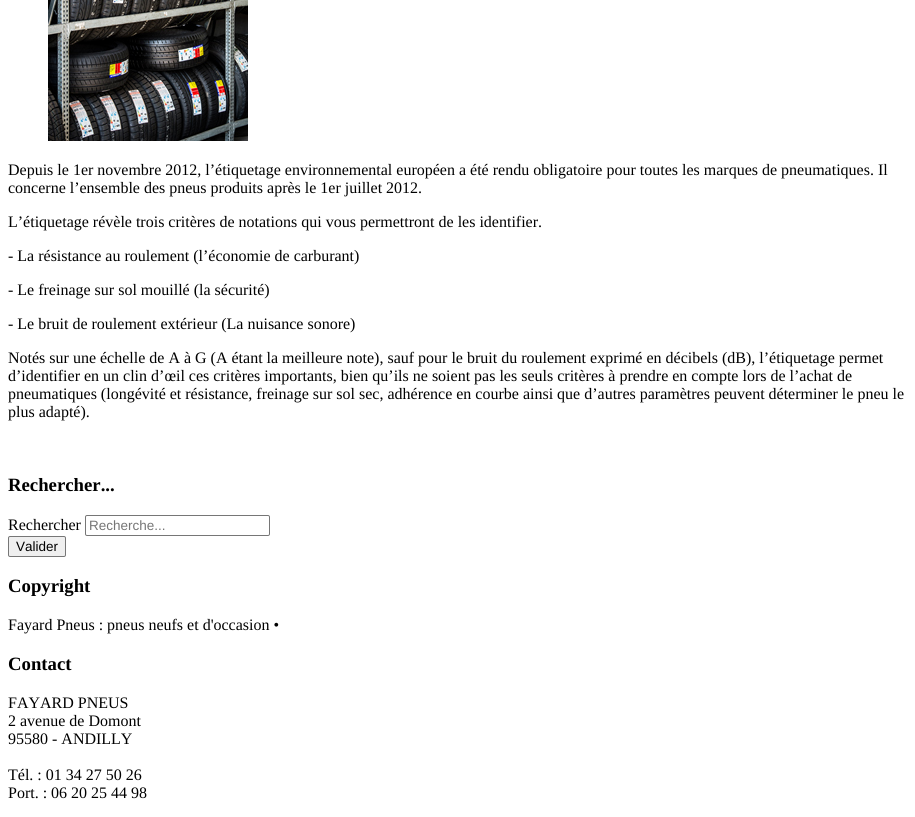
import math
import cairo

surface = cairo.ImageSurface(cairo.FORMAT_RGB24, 915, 817)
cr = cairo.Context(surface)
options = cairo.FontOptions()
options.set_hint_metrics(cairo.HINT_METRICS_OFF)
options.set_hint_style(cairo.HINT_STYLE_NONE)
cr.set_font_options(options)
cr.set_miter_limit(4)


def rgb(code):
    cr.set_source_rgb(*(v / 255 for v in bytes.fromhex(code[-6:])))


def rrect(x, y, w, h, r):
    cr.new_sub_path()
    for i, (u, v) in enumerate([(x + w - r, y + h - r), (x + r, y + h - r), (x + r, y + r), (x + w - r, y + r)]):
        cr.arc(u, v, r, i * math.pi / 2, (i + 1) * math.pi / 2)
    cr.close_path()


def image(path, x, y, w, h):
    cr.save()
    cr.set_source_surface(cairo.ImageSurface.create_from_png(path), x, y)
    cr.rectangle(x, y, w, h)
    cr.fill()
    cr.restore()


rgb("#ffffff")
cr.paint()
image("img/1.png", 48, 0, 200, 141)
rrect(85.5, 515.5, 184, 20, 1.5)
rgb("#767676")
cr.set_line_width(1)
cr.stroke()
rgb("#efefef")
rrect(8.5, 536.5, 57, 20, 1.5)
cr.fill_preserve()
rgb("#767676")
cr.stroke()
cr.select_font_face("Liberation Serif")
cr.set_font_size(16)
rgb("#000000")
for x, y, s in [
    (8, 175, "Depuis le 1er novembre 2012, l’étiquetage environnemental européen a été rendu obligatoire pour toutes les marques de pneumatiques. Il"),
    (8, 193, "concerne l’ensemble des pneus produits après le 1er juillet 2012."),
    (8, 227, "L’étiquetage révèle trois critères de notations qui vous permettront de les identifier."),
    (8, 261, "- La résistance au roulement (l’économie de carburant)"),
    (8, 295, "- Le freinage sur sol mouillé (la sécurité)"),
    (8, 329, "- Le bruit de roulement extérieur (La nuisance sonore)"),
    (8, 363, "Notés sur une échelle de A à G (A étant la meilleure note), sauf pour le bruit du roulement exprimé en décibels (dB), l’étiquetage permet"),
    (8, 381, "d’identifier en un clin d’œil ces critères importants, bien qu’ils ne soient pas les seuls critères à prendre en compte lors de l’achat de"),
    (8, 399, "pneumatiques (longévité et résistance, freinage sur sol sec, adhérence en courbe ainsi que d’autres paramètres peuvent déterminer le pneu le"),
    (8, 417, "plus adapté)."),
]:
    cr.move_to(x, y)
    cr.show_text(s)
cr.select_font_face("Liberation Serif", cairo.FONT_SLANT_NORMAL, cairo.FONT_WEIGHT_BOLD)
cr.set_font_size(18.75)
cr.move_to(8, 491)
cr.show_text("Rechercher...")
cr.select_font_face("Liberation Serif")
cr.set_font_size(16)
cr.move_to(8, 530)
cr.show_text("Rechercher")
cr.select_font_face("Liberation Sans")
cr.set_font_size(13.5)
rgb("#757575")
cr.move_to(89, 530)
cr.show_text("Recherche...")
rgb("#000000")
cr.move_to(16, 551)
cr.show_text("Valider")
cr.select_font_face("Liberation Serif", cairo.FONT_SLANT_NORMAL, cairo.FONT_WEIGHT_BOLD)
cr.set_font_size(18.75)
cr.move_to(8, 592)
cr.show_text("Copyright")
cr.select_font_face("Liberation Serif")
cr.set_font_size(16)
cr.move_to(8, 630)
cr.show_text("Fayard Pneus : pneus neufs et d'occasion •")
cr.select_font_face("Liberation Serif", cairo.FONT_SLANT_NORMAL, cairo.FONT_WEIGHT_BOLD)
cr.set_font_size(18.75)
cr.move_to(8, 670)
cr.show_text("Contact")
cr.select_font_face("Liberation Serif")
cr.set_font_size(16)
for x, y, s in [
    (8, 708, "FAYARD PNEUS"),
    (8, 726, "2 avenue de Domont"),
    (8, 744, "95580 - ANDILLY"),
    (8, 780, "Tél. : 01 34 27 50 26"),
    (8, 798, "Port. : 06 20 25 44 98"),
]:
    cr.move_to(x, y)
    cr.show_text(s)
surface.write_to_png("page.png")
